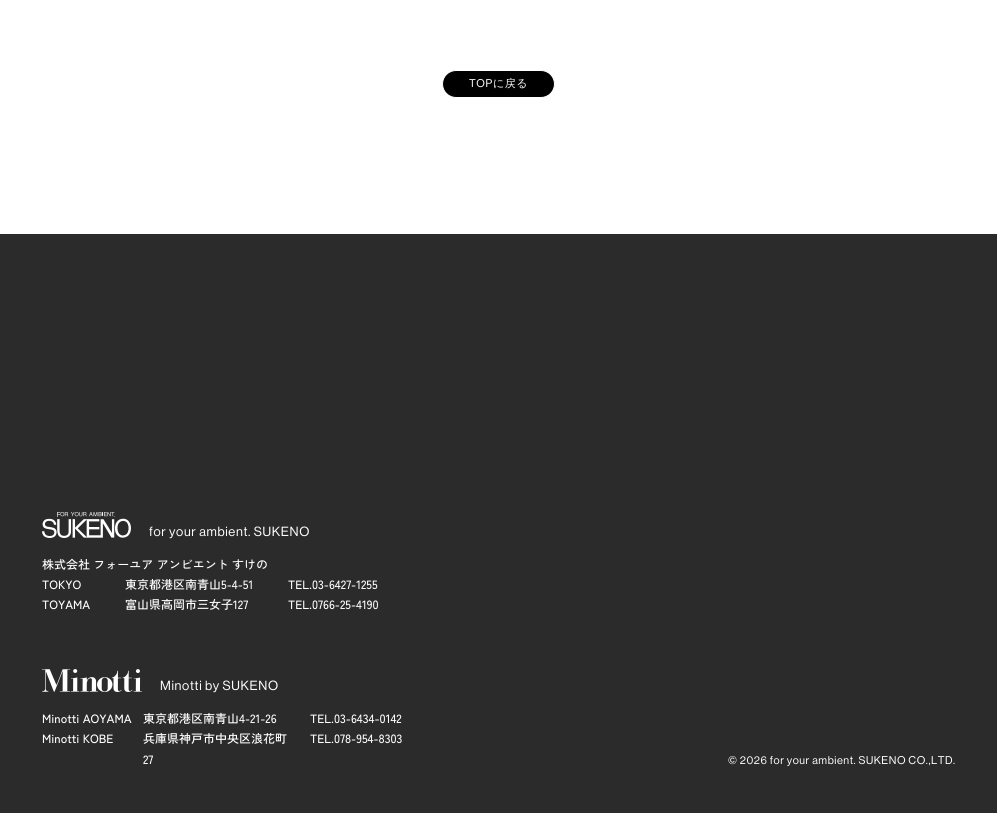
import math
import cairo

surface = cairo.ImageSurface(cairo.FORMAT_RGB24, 997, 813)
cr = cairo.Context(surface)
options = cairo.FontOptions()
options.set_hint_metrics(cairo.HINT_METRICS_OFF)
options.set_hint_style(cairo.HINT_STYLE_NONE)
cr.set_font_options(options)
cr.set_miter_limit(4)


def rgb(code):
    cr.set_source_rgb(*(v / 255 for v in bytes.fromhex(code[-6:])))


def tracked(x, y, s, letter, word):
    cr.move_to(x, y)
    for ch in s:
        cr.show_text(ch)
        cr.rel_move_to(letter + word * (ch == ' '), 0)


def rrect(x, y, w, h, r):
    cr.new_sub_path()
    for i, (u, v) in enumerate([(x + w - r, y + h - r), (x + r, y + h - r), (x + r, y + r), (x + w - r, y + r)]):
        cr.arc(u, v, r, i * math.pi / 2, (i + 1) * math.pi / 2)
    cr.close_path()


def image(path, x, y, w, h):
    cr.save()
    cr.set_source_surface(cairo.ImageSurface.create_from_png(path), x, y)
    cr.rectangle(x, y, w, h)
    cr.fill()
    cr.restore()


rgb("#ffffff")
cr.paint()
rgb("#000000")
rrect(442.5, 70.5, 112, 27, 13.5)
cr.fill_preserve()
rgb("#ffffff")
cr.set_line_width(1)
cr.stroke()
rgb("#2b2b2b")
cr.rectangle(0, 234, 997, 579)
cr.fill()
image("img/1.png", 42, 512, 89, 26)
image("img/2.png", 42, 669, 100, 23)
cr.select_font_face("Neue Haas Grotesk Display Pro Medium")
cr.set_font_size(11)
rgb("#ffffff")
tracked(469, 87, "TOP", 0.55, 0)
cr.select_font_face("WenQuanYi Zen Hei Medium")
tracked(493, 87, "に戻る", 0.55, 0)
cr.select_font_face("Neue Haas Grotesk Display Pro Medium")
cr.set_font_size(13)
tracked(149, 536, "for your ambient. SUKENO", 0.65, 0)
cr.select_font_face("Zen Kaku Gothic New Medium")
cr.set_font_size(12)
for x, y, s in [
    (42, 569, "株式会社 フォーユア アンビエント すけの"),
    (42, 589, "TOKYO"),
    (125, 589, "東京都港区南青山5-4-51"),
    (288, 589, "TEL.03-6427-1255"),
    (42, 609, "TOYAMA"),
    (125, 609, "富山県高岡市三女子127"),
    (288, 609, "TEL.0766-25-4190"),
]:
    cr.move_to(x, y)
    cr.show_text(s)
cr.select_font_face("Neue Haas Grotesk Display Pro Medium")
cr.set_font_size(13)
tracked(160, 690, "Minotti by SUKENO", 0.65, 0)
cr.select_font_face("Zen Kaku Gothic New Medium")
cr.set_font_size(12)
for x, y, s in [
    (42, 723, "Minotti AOYAMA"),
    (143, 723, "東京都港区南青山4-21-26"),
    (310, 723, "TEL.03-6434-0142"),
    (42, 743, "Minotti KOBE"),
    (143, 743, "兵庫県神戸市中央区浪花町"),
    (143, 764, "27"),
    (310, 743, "TEL.078-954-8303"),
]:
    cr.move_to(x, y)
    cr.show_text(s)
cr.select_font_face("Neue Haas Grotesk Display Pro Medium")
cr.set_font_size(11)
tracked(728, 764, "© 2026 for your ambient. SUKENO CO.,LTD.", 0.55, 0)
surface.write_to_png("page.png")
